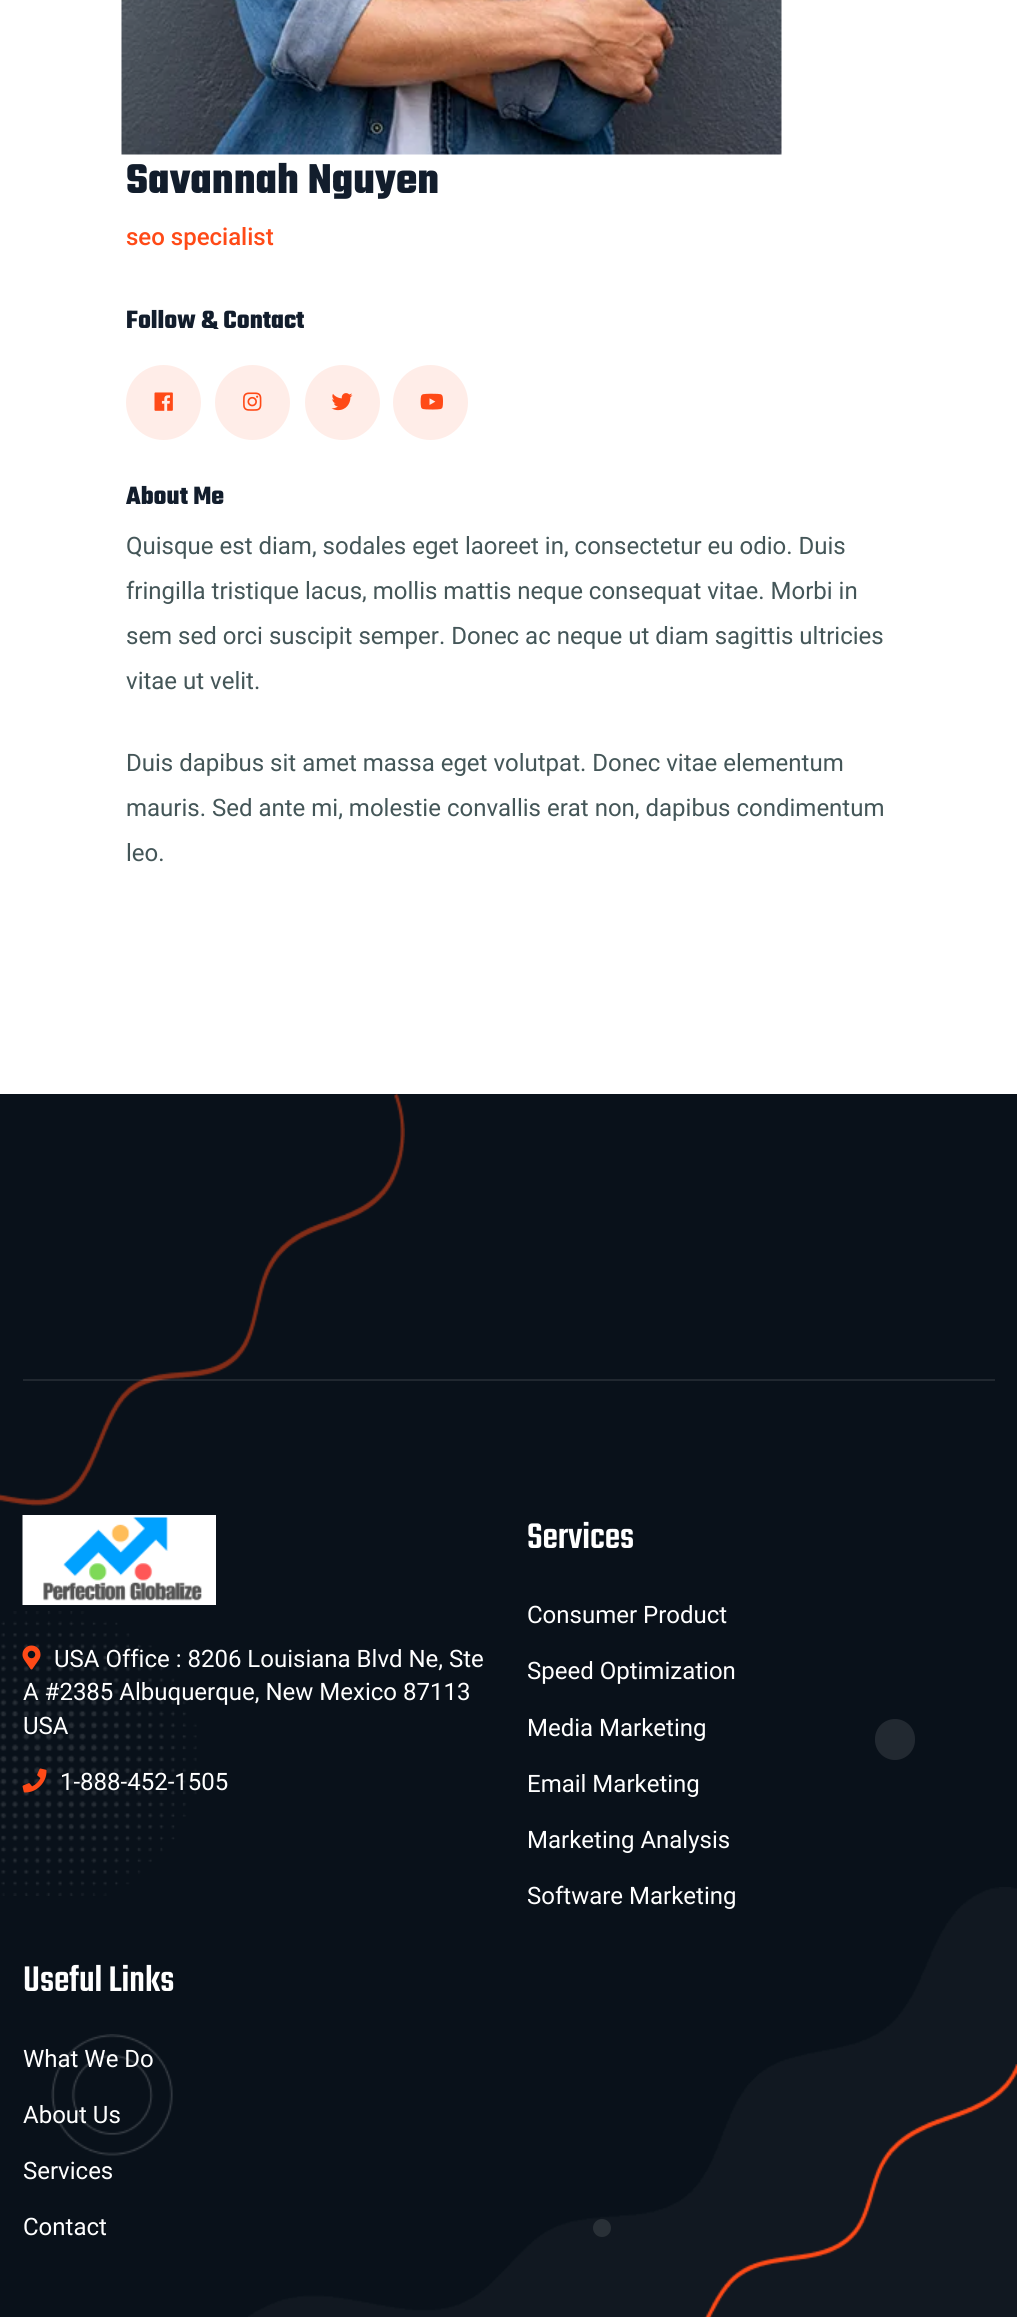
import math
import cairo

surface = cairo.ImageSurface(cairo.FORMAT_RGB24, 1017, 2317)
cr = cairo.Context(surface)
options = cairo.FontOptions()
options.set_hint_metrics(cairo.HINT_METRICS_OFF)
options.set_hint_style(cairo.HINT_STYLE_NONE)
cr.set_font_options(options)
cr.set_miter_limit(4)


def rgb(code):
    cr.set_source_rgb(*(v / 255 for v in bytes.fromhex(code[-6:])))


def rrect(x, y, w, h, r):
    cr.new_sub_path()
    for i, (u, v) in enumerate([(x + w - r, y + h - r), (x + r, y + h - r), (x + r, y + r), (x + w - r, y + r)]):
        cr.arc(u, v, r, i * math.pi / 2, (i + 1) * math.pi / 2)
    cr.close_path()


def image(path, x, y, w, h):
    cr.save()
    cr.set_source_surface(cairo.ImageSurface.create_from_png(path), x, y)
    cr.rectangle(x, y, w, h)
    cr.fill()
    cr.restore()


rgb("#09111a")
cr.paint()
rgb("#ffffff")
cr.rectangle(0, 0, 1017, 1094)
cr.fill()
image("img/1.png", 121, 0, 661, 155)
rgb("#ffede8")
cr.arc(163.5, 402.5, 37.5, 0, 2 * math.pi)
cr.fill()
image("img/2.png", 154, 392, 19, 19)
cr.arc(252.5, 402.5, 37.5, 0, 2 * math.pi)
cr.fill()
image("img/3.png", 243, 392, 19, 19)
cr.arc(342.5, 402.5, 37.5, 0, 2 * math.pi)
cr.fill()
image("img/4.png", 331, 393, 22, 18)
cr.arc(430.5, 402.5, 37.5, 0, 2 * math.pi)
cr.fill()
image("img/5.png", 420, 393, 23, 17)
image("img/6.png", 0, 1094, 405, 412)
cr.set_source_rgba(1, 1, 1, 0.1)
cr.rectangle(23, 1379, 972, 2)
cr.fill()
image("img/7.png", 22, 1515, 194, 90)
image("img/10.png", 0, 1611, 197, 285)
image("img/8.png", 22, 1645, 19, 25)
image("img/9.png", 22, 1768, 25, 25)
rgb("#222931")
rrect(875, 1719, 40, 41, 20)
cr.fill()
image("img/11.png", 51, 2034, 122, 122)
image("img/12.png", 248, 1887, 769, 430)
rgb("#293037")
cr.arc(602, 2228, 9, 0, 2 * math.pi)
cr.fill()
image("img/13.png", 704, 2064, 313, 253)
cr.select_font_face("Teko", cairo.FONT_SLANT_NORMAL, cairo.FONT_WEIGHT_BOLD)
cr.set_font_size(45)
rgb("#121d2c")
cr.move_to(126, 193)
cr.show_text("Savannah Nguyen")
cr.select_font_face("Roboto Medium")
cr.set_font_size(24)
rgb("#ff4a17")
cr.move_to(126, 245)
cr.show_text("seo specialist")
cr.select_font_face("Teko", cairo.FONT_SLANT_NORMAL, cairo.FONT_WEIGHT_BOLD)
cr.set_font_size(27)
rgb("#121d2c")
cr.move_to(126, 328)
cr.show_text("Follow & Contact")
cr.move_to(126, 504)
cr.show_text("About Me")
cr.select_font_face("Roboto")
cr.set_font_size(24)
rgb("#445658")
for x, y, s in [
    (126, 554, "Quisque est diam, sodales eget laoreet in, consectetur eu odio. Duis"),
    (126, 599, "fringilla tristique lacus, mollis mattis neque consequat vitae. Morbi in"),
    (126, 644, "sem sed orci suscipit semper. Donec ac neque ut diam sagittis ultricies"),
    (126, 689, "vitae ut velit."),
    (126, 771, "Duis dapibus sit amet massa eget volutpat. Donec vitae elementum"),
    (126, 816, "mauris. Sed ante mi, molestie convallis erat non, dapibus condimentum"),
    (126, 861, "leo."),
]:
    cr.move_to(x, y)
    cr.show_text(s)
rgb("#ffffff")
for x, y, s in [
    (54, 1667, "USA Office : 8206 Louisiana Blvd Ne, Ste"),
    (23, 1700, "A #2385 Albuquerque, New Mexico 87113"),
    (23, 1734, "USA"),
    (60, 1790, "1-888-452-1505"),
]:
    cr.move_to(x, y)
    cr.show_text(s)
cr.select_font_face("Teko Medium")
cr.set_font_size(39)
cr.move_to(527, 1548)
cr.show_text("Services")
cr.select_font_face("Roboto")
cr.set_font_size(24)
for x, y, s in [
    (527, 1623, "Consumer Product"),
    (527, 1679, "Speed Optimization"),
    (527, 1736, "Media Marketing"),
    (527, 1792, "Email Marketing"),
    (527, 1848, "Marketing Analysis"),
    (527, 1904, "Software Marketing"),
]:
    cr.move_to(x, y)
    cr.show_text(s)
cr.select_font_face("Teko Medium")
cr.set_font_size(39)
cr.move_to(23, 1991)
cr.show_text("Useful Links")
cr.select_font_face("Roboto")
cr.set_font_size(24)
for x, y, s in [
    (23, 2067, "What We Do"),
    (23, 2123, "About Us"),
    (23, 2179, "Services"),
    (23, 2235, "Contact"),
]:
    cr.move_to(x, y)
    cr.show_text(s)
surface.write_to_png("page.png")
